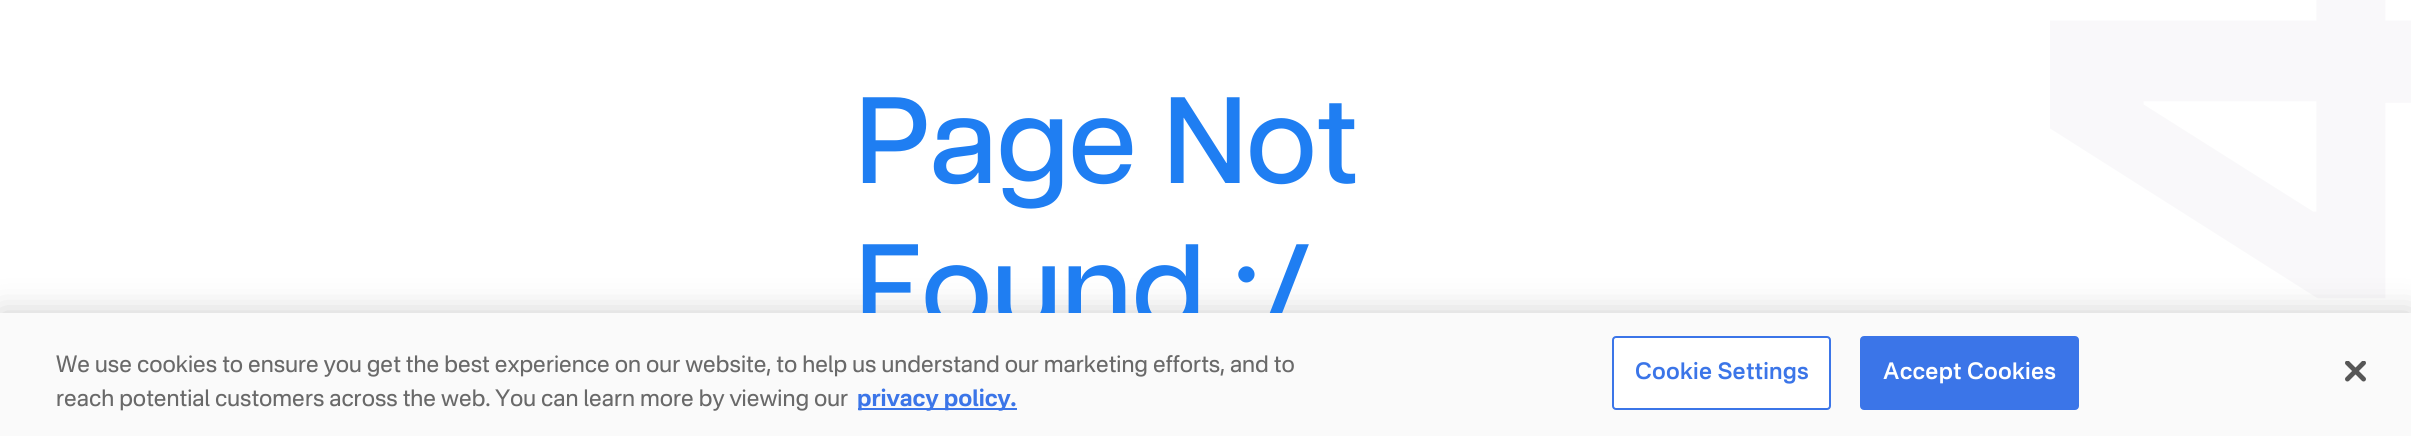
import math
import cairo

surface = cairo.ImageSurface(cairo.FORMAT_RGB24, 2411, 436)
cr = cairo.Context(surface)
options = cairo.FontOptions()
options.set_hint_metrics(cairo.HINT_METRICS_OFF)
options.set_hint_style(cairo.HINT_STYLE_NONE)
cr.set_font_options(options)
cr.set_miter_limit(4)


def rgb(code):
    cr.set_source_rgb(*(v / 255 for v in bytes.fromhex(code[-6:])))


def tracked(x, y, s, letter, word):
    cr.move_to(x, y)
    for ch in s:
        cr.show_text(ch)
        cr.rel_move_to(letter + word * (ch == ' '), 0)


def rrect(x, y, w, h, r):
    cr.new_sub_path()
    for i, (u, v) in enumerate([(x + w - r, y + h - r), (x + r, y + h - r), (x + r, y + r), (x + w - r, y + r)]):
        cr.arc(u, v, r, i * math.pi / 2, (i + 1) * math.pi / 2)
    cr.close_path()


def soft_shadow(x, y, w, h, r, blur, alpha):
    cr.push_group_with_content(cairo.CONTENT_ALPHA)
    cr.set_operator(cairo.OPERATOR_SOURCE)
    for i in range(15, -16, -2):
        e = blur * i / 6
        if min(w, h) + 2 * e > 0:
            cr.set_source_rgba(0, 0, 0, alpha * math.erfc((i - 1) / 8.5) / 2)
            rrect(x - e, y - e, w + 2 * e, h + 2 * e, max(0, min(r + e + blur * .6, min(w, h) / 2 + e)))
            cr.fill()
    cr.mask(cr.pop_group())


def image(path, x, y, w, h):
    cr.save()
    cr.set_source_surface(cairo.ImageSurface.create_from_png(path), x, y)
    cr.rectangle(x, y, w, h)
    cr.fill()
    cr.restore()


rgb("#ffffff")
cr.paint()
image("img/1.png", 2050, 0, 361, 299)
rgb("#000000")
soft_shadow(0, 313, 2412, 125, 0, 16, 0.2)
cr.select_font_face("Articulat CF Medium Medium")
cr.set_font_size(122.5)
rgb("#1f7ef2")
cr.move_to(856, 183)
cr.show_text("Page Not")
cr.move_to(856, 330)
cr.show_text("Found :/")
rgb("#fafafa")
cr.rectangle(0, 313, 2411, 123)
cr.fill()
cr.select_font_face("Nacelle")
cr.set_font_size(22.75)
rgb("#696969")
cr.move_to(56, 372)
cr.show_text("We use cookies to ensure you get the best experience on our website, to help us understand our marketing efforts, and to")
cr.move_to(56, 406)
cr.show_text("reach potential customers across the web. You can learn more by viewing our")
rgb("#3b75e8")
cr.rectangle(858, 408, 159, 2)
cr.fill()
cr.select_font_face("Nacelle", cairo.FONT_SLANT_NORMAL, cairo.FONT_WEIGHT_BOLD)
cr.move_to(857, 406)
cr.show_text("privacy policy.")
rgb("#ffffff")
rrect(1613, 337, 217, 72, 3)
cr.fill_preserve()
rgb("#3b75e8")
cr.stroke()
cr.select_font_face("Nacelle SemiBold")
tracked(1635, 379, "Cookie Settings", 0.25, 0)
rrect(1861, 337, 217, 72, 3)
cr.fill_preserve()
cr.stroke()
rgb("#ffffff")
tracked(1883, 379, "Accept Cookies", 0.25, 0)
image("img/2.png", 2345, 361, 21, 21)
surface.write_to_png("page.png")
